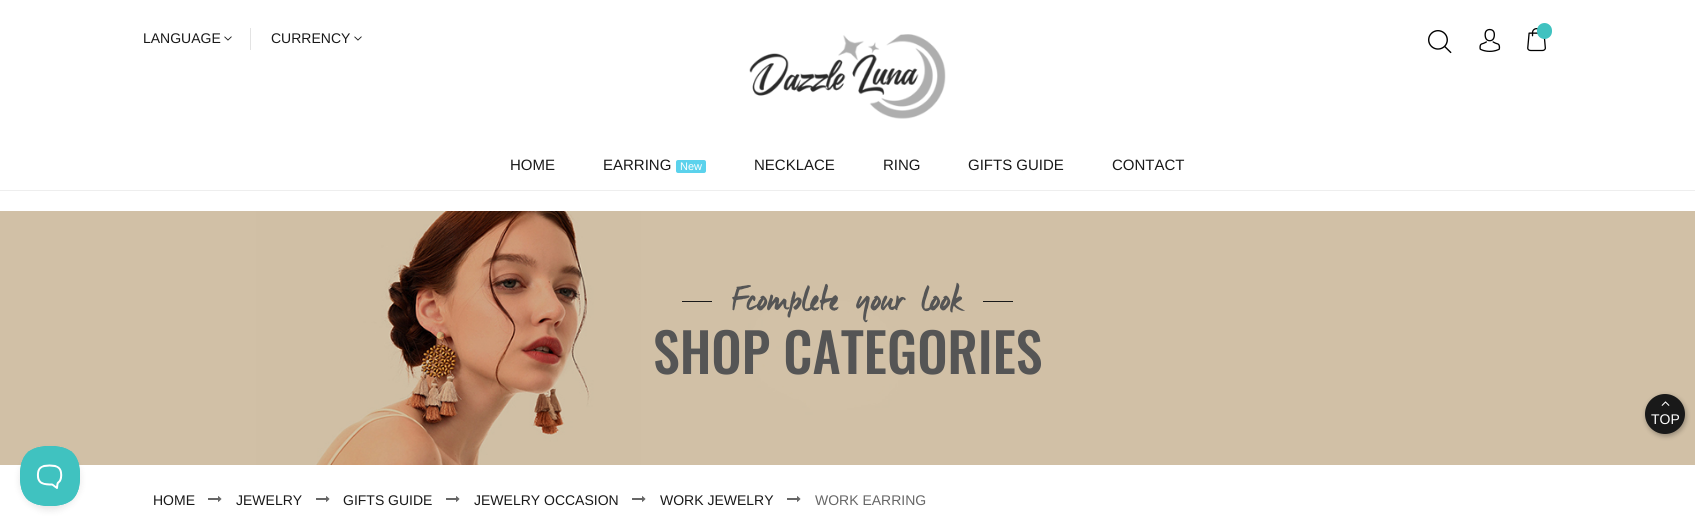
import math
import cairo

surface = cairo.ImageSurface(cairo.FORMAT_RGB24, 1695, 516)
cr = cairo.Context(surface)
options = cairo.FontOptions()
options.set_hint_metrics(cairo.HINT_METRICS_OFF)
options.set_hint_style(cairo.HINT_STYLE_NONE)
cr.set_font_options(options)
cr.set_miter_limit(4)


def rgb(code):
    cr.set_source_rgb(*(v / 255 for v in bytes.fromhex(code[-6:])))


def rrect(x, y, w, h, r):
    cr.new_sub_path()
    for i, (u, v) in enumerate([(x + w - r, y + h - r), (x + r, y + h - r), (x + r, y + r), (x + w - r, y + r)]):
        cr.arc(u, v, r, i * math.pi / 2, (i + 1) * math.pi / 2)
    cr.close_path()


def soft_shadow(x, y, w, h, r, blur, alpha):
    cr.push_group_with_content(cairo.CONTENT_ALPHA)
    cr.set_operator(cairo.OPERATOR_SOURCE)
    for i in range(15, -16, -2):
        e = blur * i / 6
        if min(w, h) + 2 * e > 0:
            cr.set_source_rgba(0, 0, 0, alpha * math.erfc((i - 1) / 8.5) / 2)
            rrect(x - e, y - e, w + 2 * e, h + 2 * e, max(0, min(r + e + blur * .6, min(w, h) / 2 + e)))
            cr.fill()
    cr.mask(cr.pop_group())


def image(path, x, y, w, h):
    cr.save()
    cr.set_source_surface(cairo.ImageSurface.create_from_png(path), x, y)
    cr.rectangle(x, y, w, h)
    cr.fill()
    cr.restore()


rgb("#ffffff")
cr.paint()
image("img/7.png", 0, 211, 1695, 254)
rgb("#000000")
soft_shadow(20, 450, 60, 60, 30, 3.5, 0.1)
image("img/1.png", 20, 446, 60, 60)
rgb("#eeeeee")
cr.rectangle(0, 190, 1695, 1)
cr.fill()
rgb("#e3e3e3")
cr.rectangle(250, 28, 1, 22)
cr.fill()
image("img/2.png", 224, 36, 8, 5)
image("img/2.png", 354, 36, 8, 5)
image("img/3.png", 749, 34, 197, 85)
image("img/4.png", 1428, 30, 24, 24)
image("img/5.png", 1479, 28, 22, 24)
image("img/6.png", 1527, 28, 19, 24)
rgb("#40c2c0")
rrect(1537, 23, 15, 16, 7.5)
cr.fill()
rgb("#5bd2ec")
rrect(676, 160, 30, 13, 2)
cr.fill()
rgb("#191919")
cr.rectangle(682, 301, 30, 1)
cr.fill()
cr.rectangle(983, 301, 30, 1)
cr.fill()
rgb("#000000")
soft_shadow(1646, 396, 40, 40, 20, 2.5, 0.3)
rgb("#191919")
cr.arc(1665, 414, 20, 0, 2 * math.pi)
cr.fill()
image("img/8.png", 1661, 401, 9, 5)
image("img/9.png", 208, 496, 14, 6)
image("img/9.png", 316, 496, 14, 6)
image("img/9.png", 446, 496, 14, 6)
image("img/9.png", 632, 496, 14, 6)
image("img/9.png", 787, 496, 14, 6)
cr.select_font_face("Liberation Sans")
cr.set_font_size(14)
cr.move_to(143, 43)
cr.show_text("LANGUAGE")
cr.move_to(271, 43)
cr.show_text("CURRENCY")
cr.set_font_size(15)
cr.move_to(510, 170)
cr.show_text("HOME")
cr.move_to(603, 170)
cr.show_text("EARRING")
cr.set_font_size(11)
rgb("#ffffff")
cr.move_to(680, 170)
cr.show_text("New")
cr.set_font_size(15)
rgb("#191919")
for x, y, s in [
    (754, 170, "NECKLACE"),
    (883, 170, "RING"),
    (968, 170, "GIFTS GUIDE"),
    (1112, 170, "CONTACT"),
]:
    cr.move_to(x, y)
    cr.show_text(s)
cr.select_font_face("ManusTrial")
cr.set_font_size(35)
rgb("#555555")
cr.move_to(732, 310)
cr.show_text("Fcomplete your look")
cr.select_font_face("Oswald Medium")
cr.set_font_size(54)
cr.move_to(653, 374)
cr.show_text("SHOP CATEGORIES")
cr.select_font_face("Liberation Sans")
cr.set_font_size(14)
rgb("#ffffff")
cr.move_to(1651, 424)
cr.show_text("TOP")
rgb("#191919")
for x, y, s in [
    (153, 505, "HOME"),
    (236, 505, "JEWELRY"),
    (343, 505, "GIFTS GUIDE"),
    (474, 505, "JEWELRY OCCASION"),
    (660, 505, "WORK JEWELRY"),
]:
    cr.move_to(x, y)
    cr.show_text(s)
rgb("#666666")
cr.move_to(815, 505)
cr.show_text("WORK EARRING")
surface.write_to_png("page.png")
